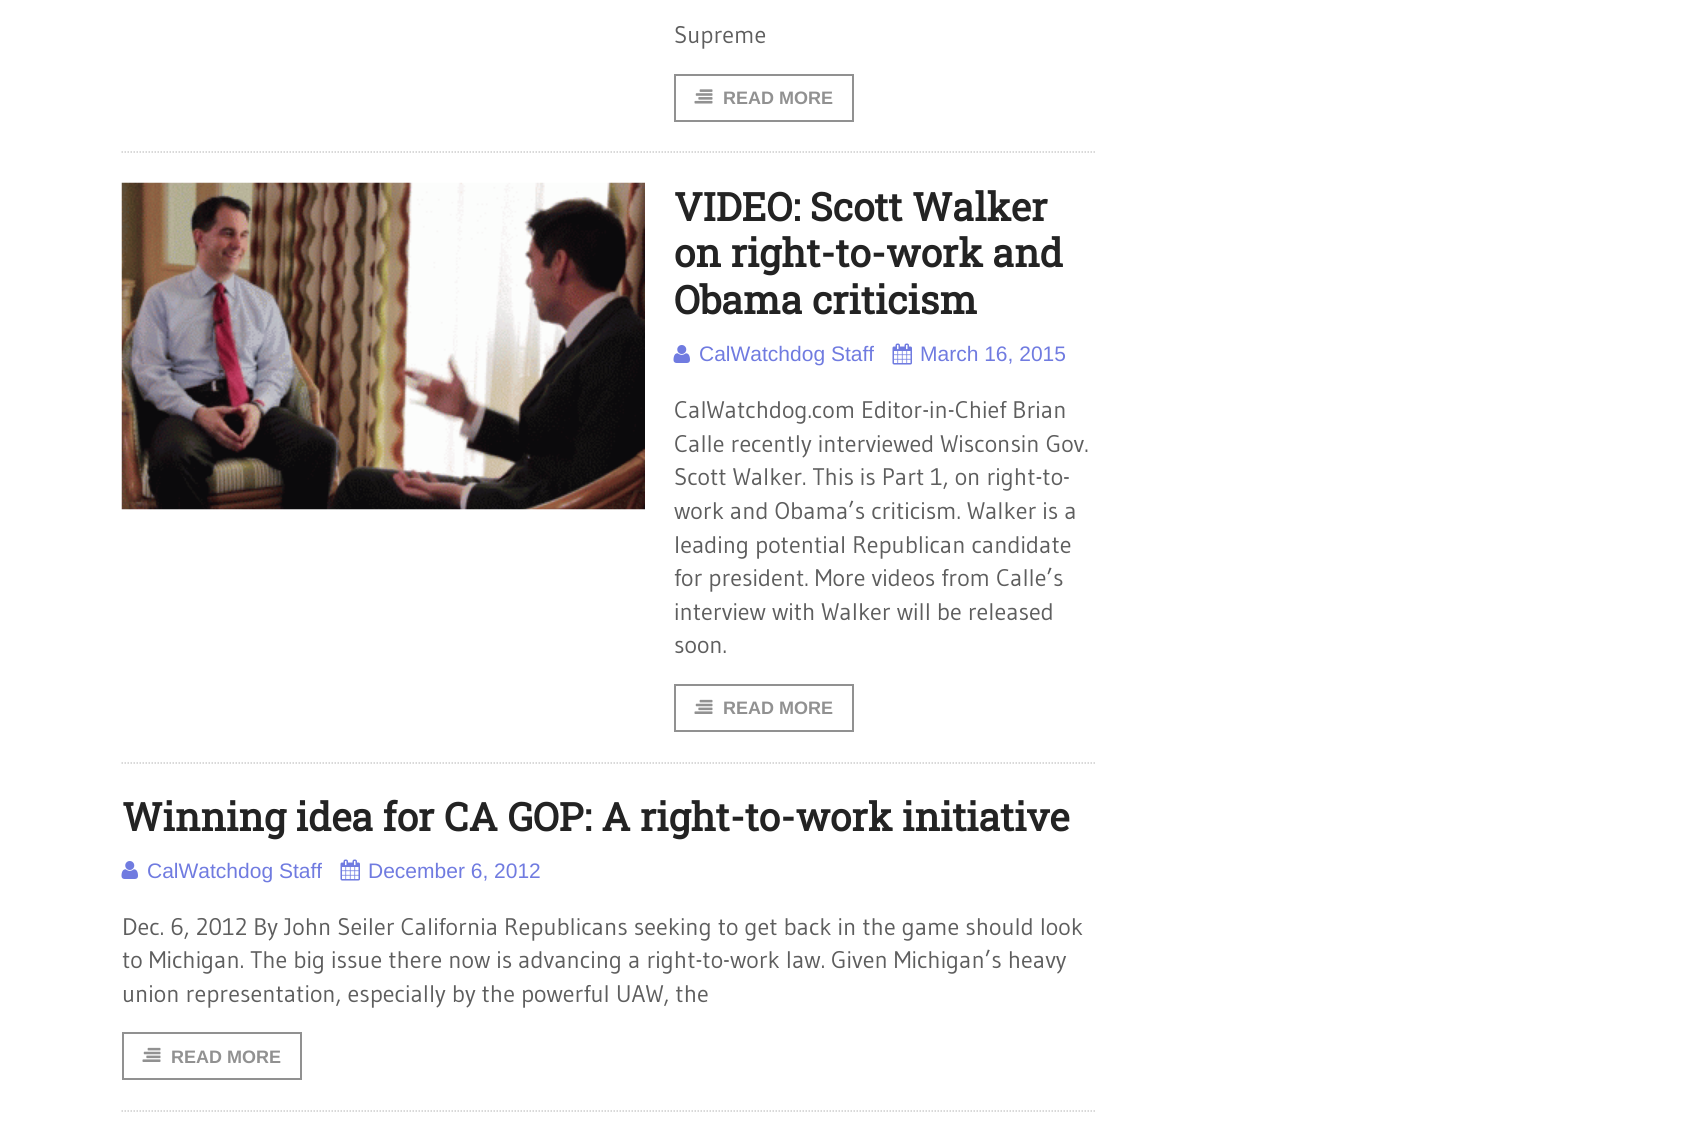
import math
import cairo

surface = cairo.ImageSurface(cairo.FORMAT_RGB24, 1707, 1145)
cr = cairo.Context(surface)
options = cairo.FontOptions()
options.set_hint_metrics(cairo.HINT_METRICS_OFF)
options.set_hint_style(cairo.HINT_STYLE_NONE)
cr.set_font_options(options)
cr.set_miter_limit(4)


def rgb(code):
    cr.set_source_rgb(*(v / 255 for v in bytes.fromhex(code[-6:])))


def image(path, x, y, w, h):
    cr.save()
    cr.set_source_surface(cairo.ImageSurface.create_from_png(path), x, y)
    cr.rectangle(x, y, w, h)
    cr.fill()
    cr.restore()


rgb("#ffffff")
cr.paint()
cr.new_path()
cr.move_to(121.5, 152)
cr.line_to(1096.5, 152)
rgb("#cccccc")
cr.set_line_width(1.5)
cr.set_dash([1.5, 1.5])
cr.stroke()
cr.rectangle(675, 75, 178, 46)
rgb("#919191")
cr.set_line_width(2)
cr.set_dash([])
cr.stroke()
image("img/1.png", 694, 89, 19, 15)
cr.new_path()
cr.move_to(121.5, 763)
cr.line_to(1096.5, 763)
rgb("#cccccc")
cr.set_line_width(1.5)
cr.set_dash([1.5, 1.5])
cr.stroke()
image("img/2.png", 121, 182, 524, 328)
image("img/3.png", 673, 345, 17, 18)
image("img/4.png", 892, 343, 20, 22)
cr.rectangle(675, 685, 178, 46)
rgb("#919191")
cr.set_line_width(2)
cr.set_dash([])
cr.stroke()
image("img/5.png", 694, 699, 19, 15)
cr.new_path()
cr.move_to(121.5, 1111)
cr.line_to(1096.5, 1111)
rgb("#cccccc")
cr.set_line_width(1.5)
cr.set_dash([1.5, 1.5])
cr.stroke()
image("img/3.png", 121, 861, 17, 18)
image("img/4.png", 340, 859, 20, 22)
cr.rectangle(123, 1033, 178, 46)
rgb("#919191")
cr.set_line_width(2)
cr.set_dash([])
cr.stroke()
image("img/5.png", 142, 1047, 19, 15)
cr.select_font_face("Gudea")
cr.set_font_size(24)
rgb("#5e5e5e")
cr.move_to(674, 43)
cr.show_text("Supreme")
cr.select_font_face("Liberation Sans", cairo.FONT_SLANT_NORMAL, cairo.FONT_WEIGHT_BOLD)
cr.set_font_size(18)
rgb("#919191")
cr.move_to(723, 104)
cr.show_text("READ MORE")
cr.select_font_face("Roboto Slab", cairo.FONT_SLANT_NORMAL, cairo.FONT_WEIGHT_BOLD)
cr.set_font_size(39)
rgb("#232323")
for x, y, s in [
    (674, 221, "VIDEO: Scott Walker"),
    (674, 267, "on right-to-work and"),
    (674, 314, "Obama criticism"),
]:
    cr.move_to(x, y)
    cr.show_text(s)
cr.select_font_face("Liberation Sans")
cr.set_font_size(21)
rgb("#707be0")
cr.move_to(699, 361)
cr.show_text("CalWatchdog Staff")
cr.move_to(920, 361)
cr.show_text("March 16, 2015")
cr.select_font_face("Gudea")
cr.set_font_size(24)
rgb("#5e5e5e")
for x, y, s in [
    (674, 418, "CalWatchdog.com Editor-in-Chief Brian"),
    (674, 452, "Calle recently interviewed Wisconsin Gov."),
    (674, 485, "Scott Walker. This is Part 1, on right-to-"),
    (674, 519, "work and Obama’s criticism. Walker is a"),
    (674, 553, "leading potential Republican candidate"),
    (674, 586, "for president. More videos from Calle’s"),
    (674, 620, "interview with Walker will be released"),
    (674, 653, "soon."),
]:
    cr.move_to(x, y)
    cr.show_text(s)
cr.select_font_face("Liberation Sans", cairo.FONT_SLANT_NORMAL, cairo.FONT_WEIGHT_BOLD)
cr.set_font_size(18)
rgb("#919191")
cr.move_to(723, 714)
cr.show_text("READ MORE")
cr.select_font_face("Roboto Slab", cairo.FONT_SLANT_NORMAL, cairo.FONT_WEIGHT_BOLD)
cr.set_font_size(39)
rgb("#232323")
cr.move_to(122, 831)
cr.show_text("Winning idea for CA GOP: A right-to-work initiative")
cr.select_font_face("Liberation Sans")
cr.set_font_size(21)
rgb("#707be0")
cr.move_to(147, 878)
cr.show_text("CalWatchdog Staff")
cr.move_to(368, 878)
cr.show_text("December 6, 2012")
cr.select_font_face("Gudea")
cr.set_font_size(24)
rgb("#5e5e5e")
for x, y, s in [
    (122, 935, "Dec. 6, 2012 By John Seiler California Republicans seeking to get back in the game should look"),
    (122, 968, "to Michigan. The big issue there now is advancing a right-to-work law. Given Michigan’s heavy"),
    (122, 1002, "union representation, especially by the powerful UAW, the"),
]:
    cr.move_to(x, y)
    cr.show_text(s)
cr.select_font_face("Liberation Sans", cairo.FONT_SLANT_NORMAL, cairo.FONT_WEIGHT_BOLD)
cr.set_font_size(18)
rgb("#919191")
cr.move_to(171, 1063)
cr.show_text("READ MORE")
surface.write_to_png("page.png")
